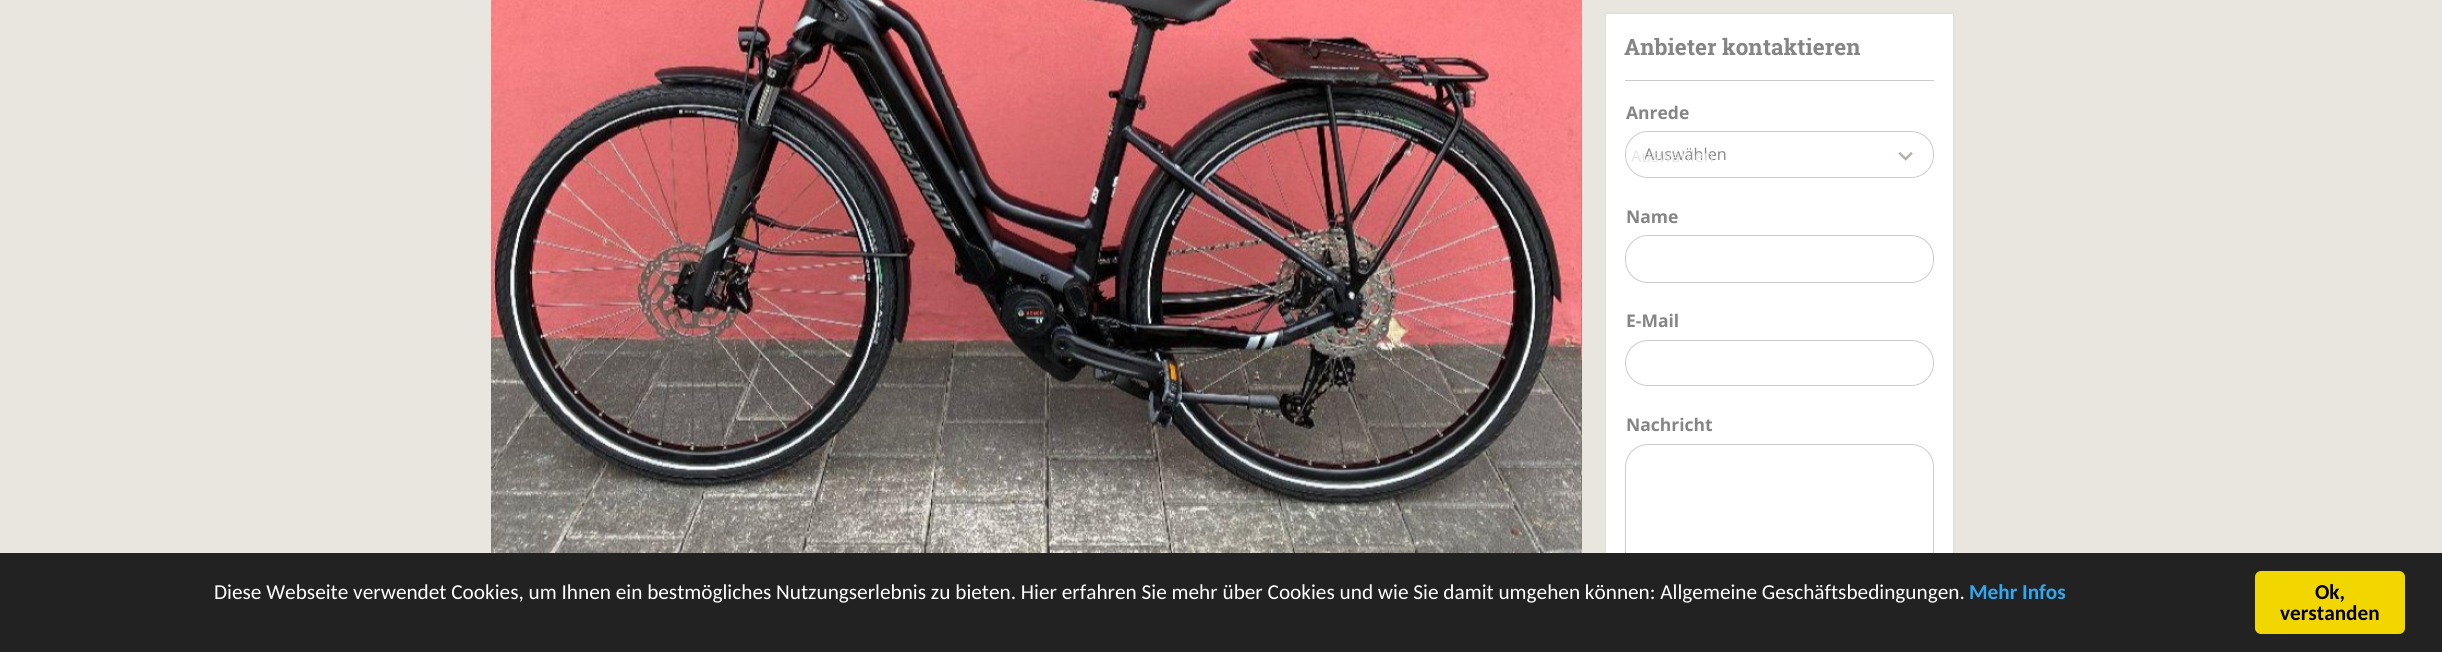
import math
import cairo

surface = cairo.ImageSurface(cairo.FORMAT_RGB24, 2442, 652)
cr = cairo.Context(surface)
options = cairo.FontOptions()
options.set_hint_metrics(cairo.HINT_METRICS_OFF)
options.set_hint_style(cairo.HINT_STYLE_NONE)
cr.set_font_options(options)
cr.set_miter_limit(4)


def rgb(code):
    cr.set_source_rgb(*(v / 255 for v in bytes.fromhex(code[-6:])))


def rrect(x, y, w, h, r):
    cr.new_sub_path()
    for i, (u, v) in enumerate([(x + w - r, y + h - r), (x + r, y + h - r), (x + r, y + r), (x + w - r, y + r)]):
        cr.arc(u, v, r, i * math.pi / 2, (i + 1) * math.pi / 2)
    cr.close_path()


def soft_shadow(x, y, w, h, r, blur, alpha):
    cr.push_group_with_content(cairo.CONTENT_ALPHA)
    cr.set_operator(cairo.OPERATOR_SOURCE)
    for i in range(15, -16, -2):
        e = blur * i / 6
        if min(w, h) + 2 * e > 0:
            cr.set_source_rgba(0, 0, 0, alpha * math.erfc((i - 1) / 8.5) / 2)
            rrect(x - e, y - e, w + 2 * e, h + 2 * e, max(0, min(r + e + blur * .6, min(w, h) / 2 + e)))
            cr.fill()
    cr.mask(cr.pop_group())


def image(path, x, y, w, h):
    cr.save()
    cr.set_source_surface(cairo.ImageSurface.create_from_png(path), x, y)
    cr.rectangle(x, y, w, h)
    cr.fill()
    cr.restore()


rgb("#e9e6e0")
cr.paint()
image("img/1.png", 491, 0, 1090, 553)
image("img/2.png", 1581, 0, 1, 553)
rgb("#000000")
soft_shadow(1606, 14, 347, 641, 0, 1, 0.1)
rgb("#ffffff")
cr.rectangle(1606, 14, 347, 539)
cr.fill()
rgb("#cccccc")
cr.rectangle(1625, 80, 309, 1)
cr.fill()
rrect(1625.5, 131.5, 308, 46, 22.5)
cr.set_line_width(1)
cr.stroke()
image("img/3.png", 1898, 152, 15, 9)
rrect(1625.5, 235.5, 308, 47, 22.5)
cr.stroke()
rrect(1625.5, 340.5, 308, 45, 22.5)
cr.stroke()
rrect(1625.5, 444.5, 308, 155, 22.5)
cr.stroke()
rgb("#222222")
cr.rectangle(0, 553, 2442, 99)
cr.fill()
rgb("#f1d600")
rrect(2255, 571, 150, 63, 6)
cr.fill()
cr.select_font_face("Roboto Slab", cairo.FONT_SLANT_NORMAL, cairo.FONT_WEIGHT_BOLD)
cr.set_font_size(22.5)
rgb("#858585")
cr.move_to(1624, 55)
cr.show_text("Anbieter kontaktieren")
cr.select_font_face("Open Sans", cairo.FONT_SLANT_NORMAL, cairo.FONT_WEIGHT_BOLD)
cr.set_font_size(17.5)
cr.move_to(1626, 119)
cr.show_text("Anrede")
cr.save()
rrect(1645, 133, 288, 46, 23)
cr.clip()
cr.select_font_face("Open Sans")
cr.set_font_size(16.25)
cr.move_to(1644, 160)
cr.show_text("Auswählen")
cr.restore()
cr.select_font_face("Open Sans")
cr.set_font_size(16.25)
rgb("#e5e5e5")
cr.move_to(1631, 162)
cr.show_text("Auswählen")
cr.select_font_face("Open Sans", cairo.FONT_SLANT_NORMAL, cairo.FONT_WEIGHT_BOLD)
cr.set_font_size(17.5)
rgb("#858585")
for x, y, s in [
    (1626, 223, "Name"),
    (1626, 327, "E-Mail"),
    (1626, 431, "Nachricht"),
]:
    cr.move_to(x, y)
    cr.show_text(s)
cr.select_font_face("Carlito")
cr.set_font_size(21.25)
rgb("#ffffff")
cr.move_to(214, 599)
cr.show_text("Diese Webseite verwendet Cookies, um Ihnen ein bestmögliches Nutzungserlebnis zu bieten. Hier erfahren Sie mehr über Cookies und wie Sie damit umgehen können: Allgemeine Geschäftsbedingungen.")
cr.select_font_face("Carlito", cairo.FONT_SLANT_NORMAL, cairo.FONT_WEIGHT_BOLD)
rgb("#31a8f0")
cr.move_to(1969, 599)
cr.show_text("Mehr Infos")
rgb("#000000")
cr.move_to(2315, 599)
cr.show_text("Ok,")
cr.move_to(2280, 620)
cr.show_text("verstanden")
surface.write_to_png("page.png")
